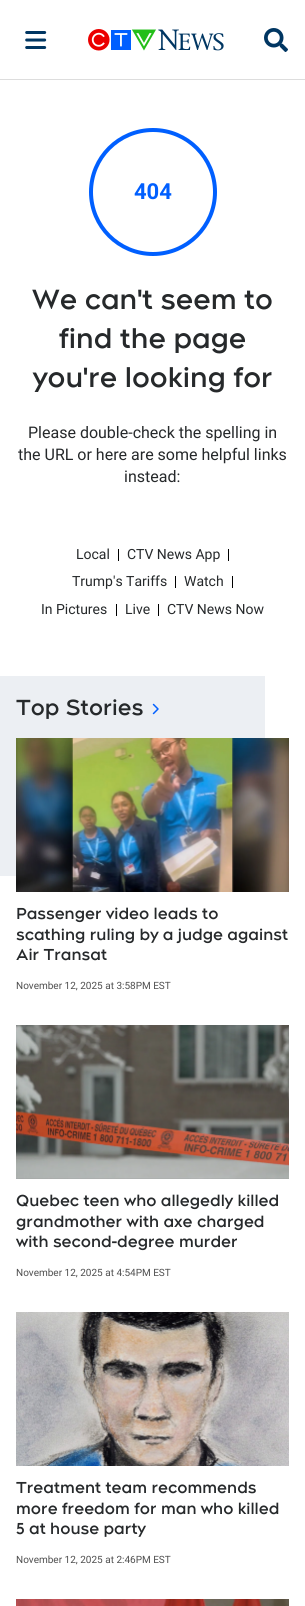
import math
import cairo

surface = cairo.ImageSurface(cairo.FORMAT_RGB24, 305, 1606)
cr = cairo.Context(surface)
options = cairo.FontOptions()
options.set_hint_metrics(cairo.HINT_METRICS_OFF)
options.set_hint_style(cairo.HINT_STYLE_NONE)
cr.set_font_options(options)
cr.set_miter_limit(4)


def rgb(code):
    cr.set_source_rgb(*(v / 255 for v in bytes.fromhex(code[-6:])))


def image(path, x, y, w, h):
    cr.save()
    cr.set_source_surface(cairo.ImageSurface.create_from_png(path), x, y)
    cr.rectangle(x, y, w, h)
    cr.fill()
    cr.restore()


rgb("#ffffff")
cr.paint()
rgb("#dddddd")
cr.rectangle(0, 79, 305, 1)
cr.fill()
image("img/1.png", 25, 31, 22, 18)
image("img/2.png", 88, 29, 136, 22)
image("img/3.png", 264, 28, 24, 24)
cr.arc(153, 192, 62, 0, 2 * math.pi)
rgb("#005fff")
cr.set_line_width(4)
cr.stroke()
for x, y, w, h, color in [
    (118, 549, 1, 12, "#000000"),
    (228, 549, 1, 12, "#000000"),
    (175, 576, 1, 12, "#000000"),
    (232, 576, 1, 12, "#000000"),
    (116, 604, 1, 12, "#000000"),
    (158, 604, 1, 12, "#000000"),
    (0, 676, 265, 200, "#eceff3"),
]:
    rgb(color)
    cr.rectangle(x, y, w, h)
    cr.fill()
image("img/4.png", 152, 703, 7, 12)
image("img/5.png", 16, 738, 273, 154)
image("img/6.png", 16, 1025, 273, 154)
image("img/7.png", 16, 1312, 273, 154)
image("img/8.png", 16, 1599, 273, 7)
cr.select_font_face("Roboto", cairo.FONT_SLANT_NORMAL, cairo.FONT_WEIGHT_BOLD)
cr.set_font_size(22)
rgb("#005fff")
cr.move_to(134, 199)
cr.show_text("404")
cr.select_font_face("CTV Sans", cairo.FONT_SLANT_NORMAL, cairo.FONT_WEIGHT_BOLD)
cr.set_font_size(28)
rgb("#26292b")
for x, y, s in [
    (32, 309, "We can't seem to"),
    (59, 348, "find the page"),
    (33, 387, "you're looking for"),
]:
    cr.move_to(x, y)
    cr.show_text(s)
cr.select_font_face("Roboto")
cr.set_font_size(16)
for x, y, s in [
    (28, 438, "Please double-check the spelling in"),
    (18, 460, "the URL or here are some helpful links"),
    (124, 482, "instead:"),
]:
    cr.move_to(x, y)
    cr.show_text(s)
cr.set_font_size(14)
for x, y, s in [
    (76, 559, "Local"),
    (127, 559, "CTV News App"),
    (72, 586, "Trump's Tariffs"),
    (184, 586, "Watch"),
    (41, 614, "In Pictures"),
    (125, 614, "Live"),
    (167, 614, "CTV News Now"),
]:
    cr.move_to(x, y)
    cr.show_text(s)
cr.select_font_face("CTV Sans", cairo.FONT_SLANT_NORMAL, cairo.FONT_WEIGHT_BOLD)
cr.set_font_size(22)
cr.move_to(16, 715)
cr.show_text("Top Stories")
cr.set_font_size(16)
for x, y, s in [
    (16, 919, "Passenger video leads to"),
    (16, 940, "scathing ruling by a judge against"),
    (16, 960, "Air Transat"),
]:
    cr.move_to(x, y)
    cr.show_text(s)
cr.select_font_face("Roboto")
cr.set_font_size(10)
rgb("#4f4f4f")
cr.move_to(16, 989)
cr.show_text("November 12, 2025 at 3:58PM EST")
cr.select_font_face("CTV Sans", cairo.FONT_SLANT_NORMAL, cairo.FONT_WEIGHT_BOLD)
cr.set_font_size(16)
rgb("#26292b")
for x, y, s in [
    (16, 1206, "Quebec teen who allegedly killed"),
    (16, 1227, "grandmother with axe charged"),
    (16, 1247, "with second-degree murder"),
]:
    cr.move_to(x, y)
    cr.show_text(s)
cr.select_font_face("Roboto")
cr.set_font_size(10)
rgb("#4f4f4f")
cr.move_to(16, 1276)
cr.show_text("November 12, 2025 at 4:54PM EST")
cr.select_font_face("CTV Sans", cairo.FONT_SLANT_NORMAL, cairo.FONT_WEIGHT_BOLD)
cr.set_font_size(16)
rgb("#26292b")
for x, y, s in [
    (16, 1493, "Treatment team recommends"),
    (16, 1514, "more freedom for man who killed"),
    (16, 1534, "5 at house party"),
]:
    cr.move_to(x, y)
    cr.show_text(s)
cr.select_font_face("Roboto")
cr.set_font_size(10)
rgb("#4f4f4f")
cr.move_to(16, 1563)
cr.show_text("November 12, 2025 at 2:46PM EST")
surface.write_to_png("page.png")
